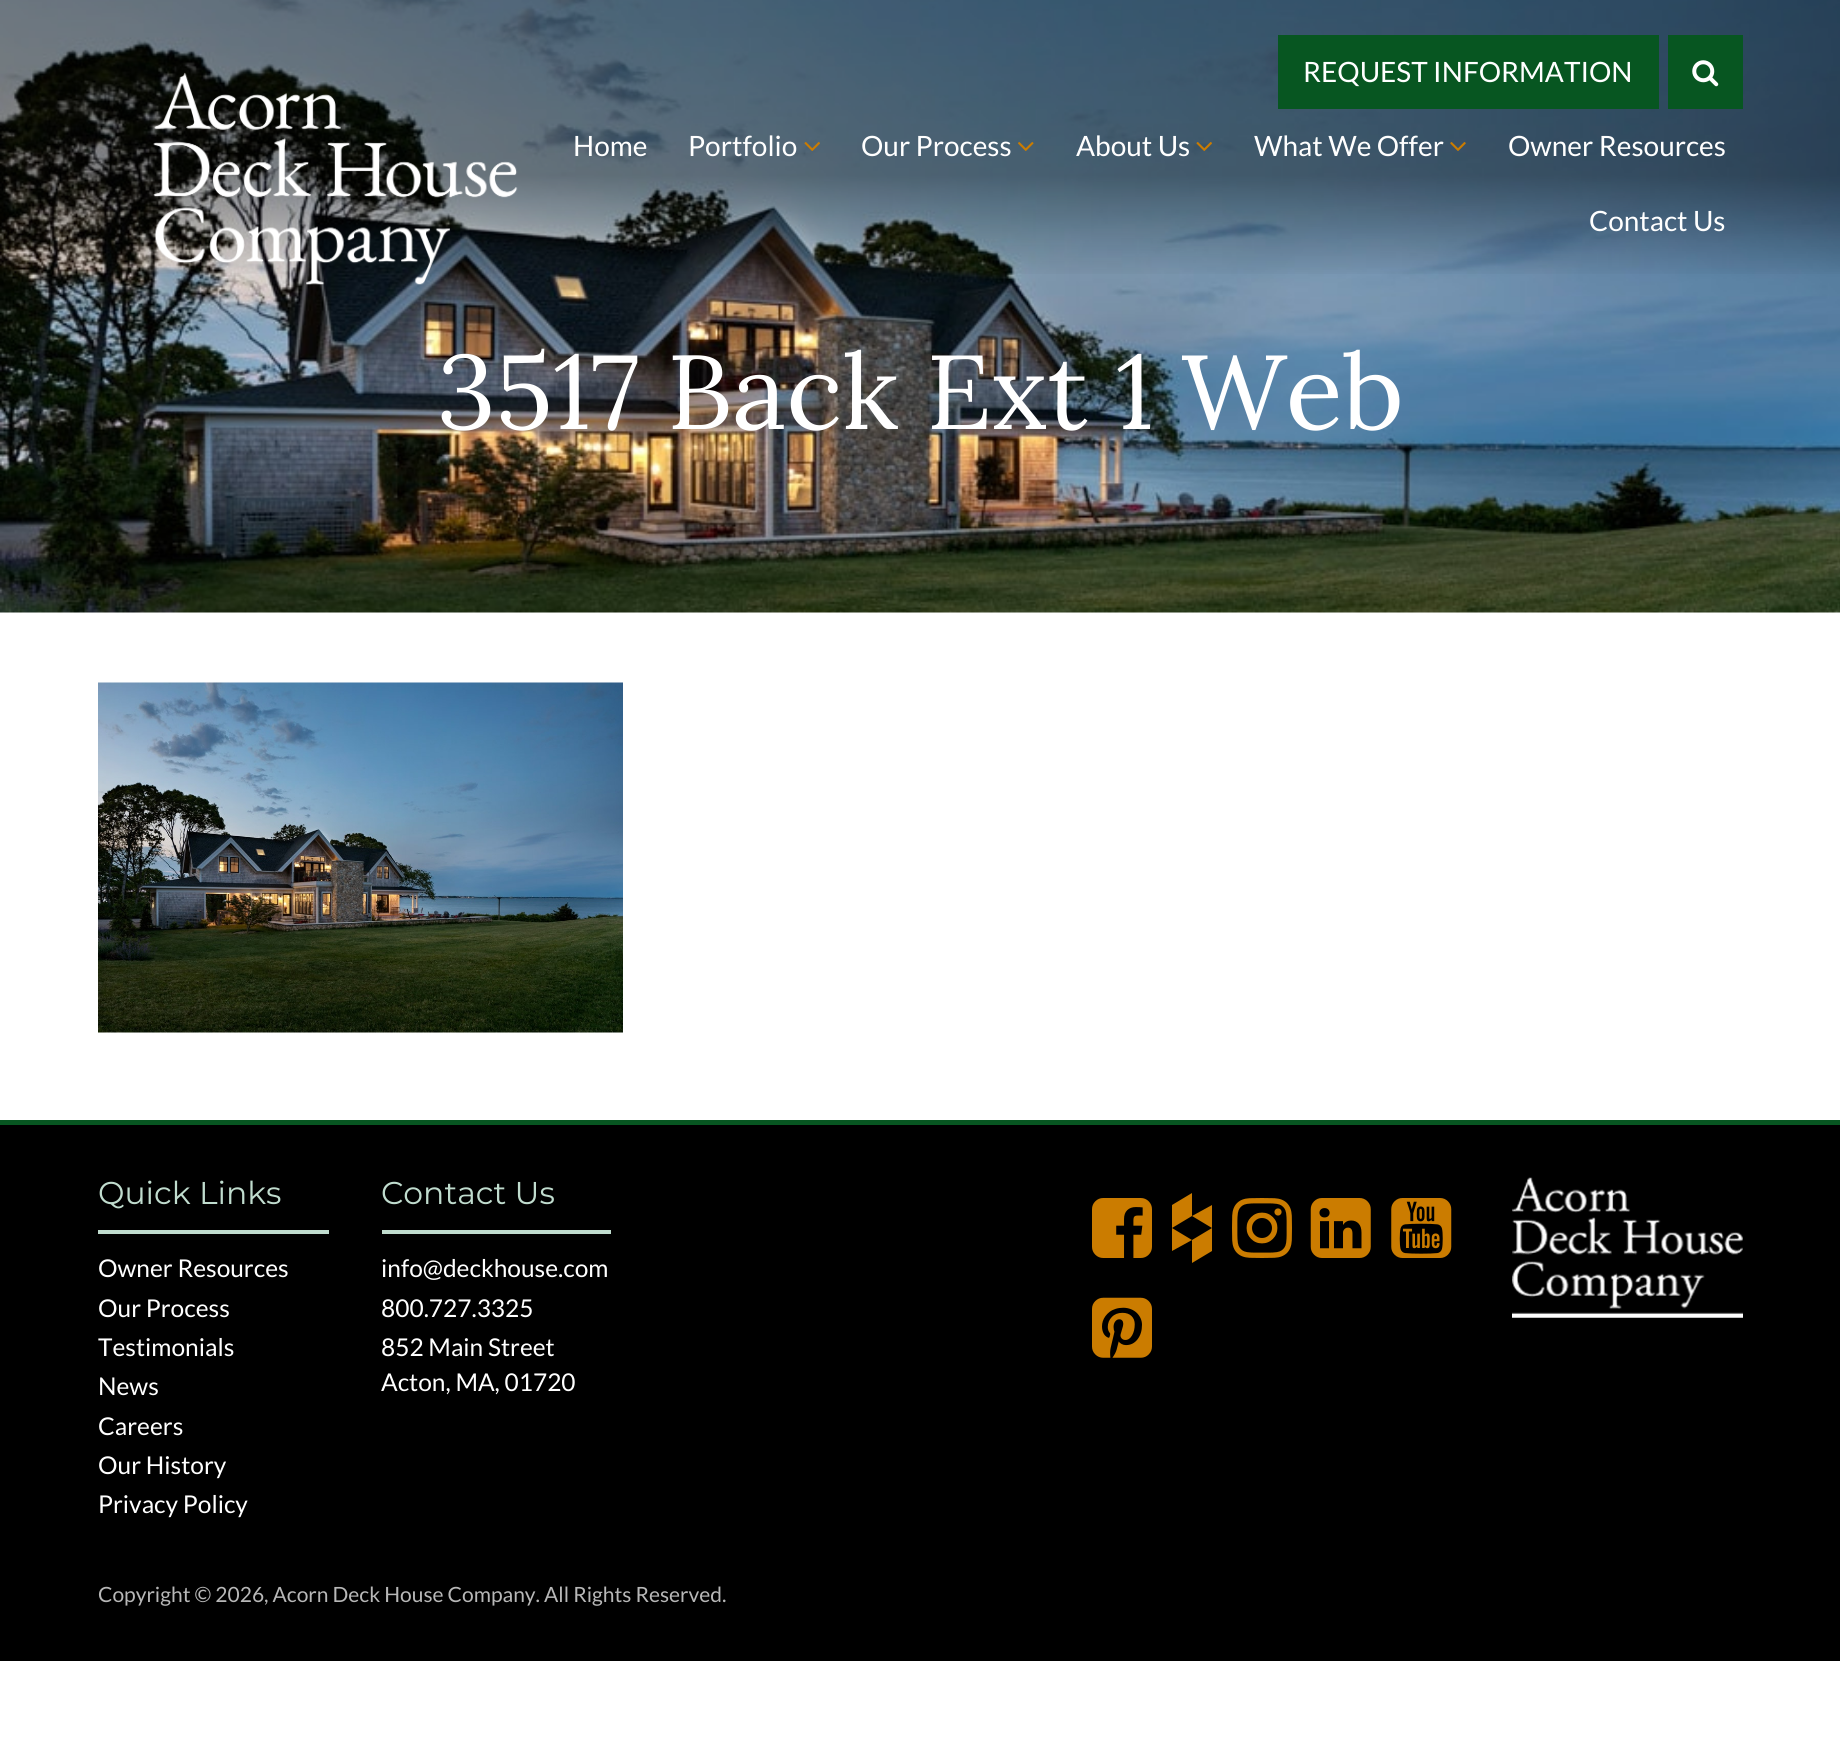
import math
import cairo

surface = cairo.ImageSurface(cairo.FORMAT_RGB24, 1840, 1744)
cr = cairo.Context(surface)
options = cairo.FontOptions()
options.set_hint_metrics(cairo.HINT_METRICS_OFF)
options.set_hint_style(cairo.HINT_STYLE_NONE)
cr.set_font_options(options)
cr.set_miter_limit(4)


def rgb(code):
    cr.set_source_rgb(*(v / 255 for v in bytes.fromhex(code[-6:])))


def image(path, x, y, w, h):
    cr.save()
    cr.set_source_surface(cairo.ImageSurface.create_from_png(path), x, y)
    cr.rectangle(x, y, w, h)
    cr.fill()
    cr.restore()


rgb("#ffffff")
cr.paint()
image("img/7.png", 0, 0, 1840, 613)
gradient = cairo.LinearGradient(921, 0, 921, 350)
gradient.add_color_stop_rgba(0.5, 0, 0, 0, 0.4)
gradient.add_color_stop_rgba(0.8, 0, 0, 0, 0)
cr.set_source(gradient)
cr.rectangle(0, 0, 1840, 274)
cr.fill()
image("img/1.png", 153, 72, 365, 213)
rgb("#075621")
cr.rectangle(1278, 35, 381, 74)
cr.fill()
cr.rectangle(1668, 35, 75, 74)
cr.fill()
image("img/2.png", 1692, 60, 27, 27)
image("img/3.png", 804, 142, 16, 9)
image("img/4.png", 1018, 142, 16, 9)
image("img/5.png", 1196, 142, 16, 9)
image("img/6.png", 1450, 142, 16, 9)
image("img/8.png", 98, 682, 525, 351)
for x, y, w, h, color in [
    (0, 1125, 1840, 536, "#000000"),
    (0, 1120, 1840, 5, "#075621"),
    (98, 1230, 231, 4, "#c0dcce"),
    (382, 1230, 229, 4, "#c0dcce"),
]:
    rgb(color)
    cr.rectangle(x, y, w, h)
    cr.fill()
image("img/9.png", 1092, 1198, 60, 60)
rgb("#cb7c00")
cr.new_path()
cr.move_to(1192, 1240)
cr.line_to(1212, 1228)
cr.line_to(1212, 1251)
cr.line_to(1192, 1263)
cr.close_path()
cr.move_to(1172, 1228)
cr.line_to(1172, 1251)
cr.line_to(1192, 1240)
cr.close_path()
cr.move_to(1192, 1193)
cr.line_to(1192, 1216)
cr.line_to(1172, 1228)
cr.line_to(1172, 1205)
cr.close_path()
cr.move_to(1192, 1216)
cr.line_to(1212, 1205)
cr.line_to(1212, 1228)
cr.close_path()
cr.fill()
image("img/10.png", 1232, 1198, 60, 60)
image("img/11.png", 1310, 1198, 61, 60)
image("img/12.png", 1391, 1198, 61, 60)
image("img/13.png", 1092, 1297, 60, 61)
image("img/14.png", 1512, 1177, 231, 141)
cr.select_font_face("Lato")
cr.set_font_size(28)
rgb("#ffffff")
for x, y, s in [
    (1303, 82, "REQUEST INFORMATION"),
    (573, 156, "Home"),
    (688, 156, "Portfolio"),
    (861, 156, "Our Process"),
    (1076, 156, "About Us"),
    (1254, 156, "What We Offer"),
    (1508, 156, "Owner Resources"),
    (1589, 231, "Contact Us"),
]:
    cr.move_to(x, y)
    cr.show_text(s)
cr.select_font_face("Lora")
cr.set_font_size(105)
cr.move_to(437, 429)
cr.show_text("3517 Back Ext 1 Web")
cr.select_font_face("Montserrat")
cr.set_font_size(31.5)
rgb("#c0dcce")
cr.move_to(98, 1204)
cr.show_text("Quick Links")
cr.select_font_face("Lato")
cr.set_font_size(24.5)
rgb("#ffffff")
for x, y, s in [
    (98, 1277, "Owner Resources"),
    (98, 1317, "Our Process"),
    (98, 1356, "Testimonials"),
    (98, 1395, "News"),
    (98, 1435, "Careers"),
    (98, 1474, "Our History"),
    (98, 1513, "Privacy Policy"),
]:
    cr.move_to(x, y)
    cr.show_text(s)
cr.select_font_face("Montserrat")
cr.set_font_size(31.5)
rgb("#c0dcce")
cr.move_to(381, 1204)
cr.show_text("Contact Us")
cr.select_font_face("Lato")
cr.set_font_size(24.5)
rgb("#ffffff")
for x, y, s in [
    (381, 1277, "info@deckhouse.com"),
    (381, 1317, "800.727.3325"),
    (381, 1356, "852 Main Street"),
    (381, 1391, "Acton, MA, 01720"),
]:
    cr.move_to(x, y)
    cr.show_text(s)
cr.set_font_size(21)
rgb("#b7b7b7")
cr.move_to(98, 1602)
cr.show_text("Copyright © 2026, Acorn Deck House Company. All Rights Reserved.")
surface.write_to_png("page.png")
